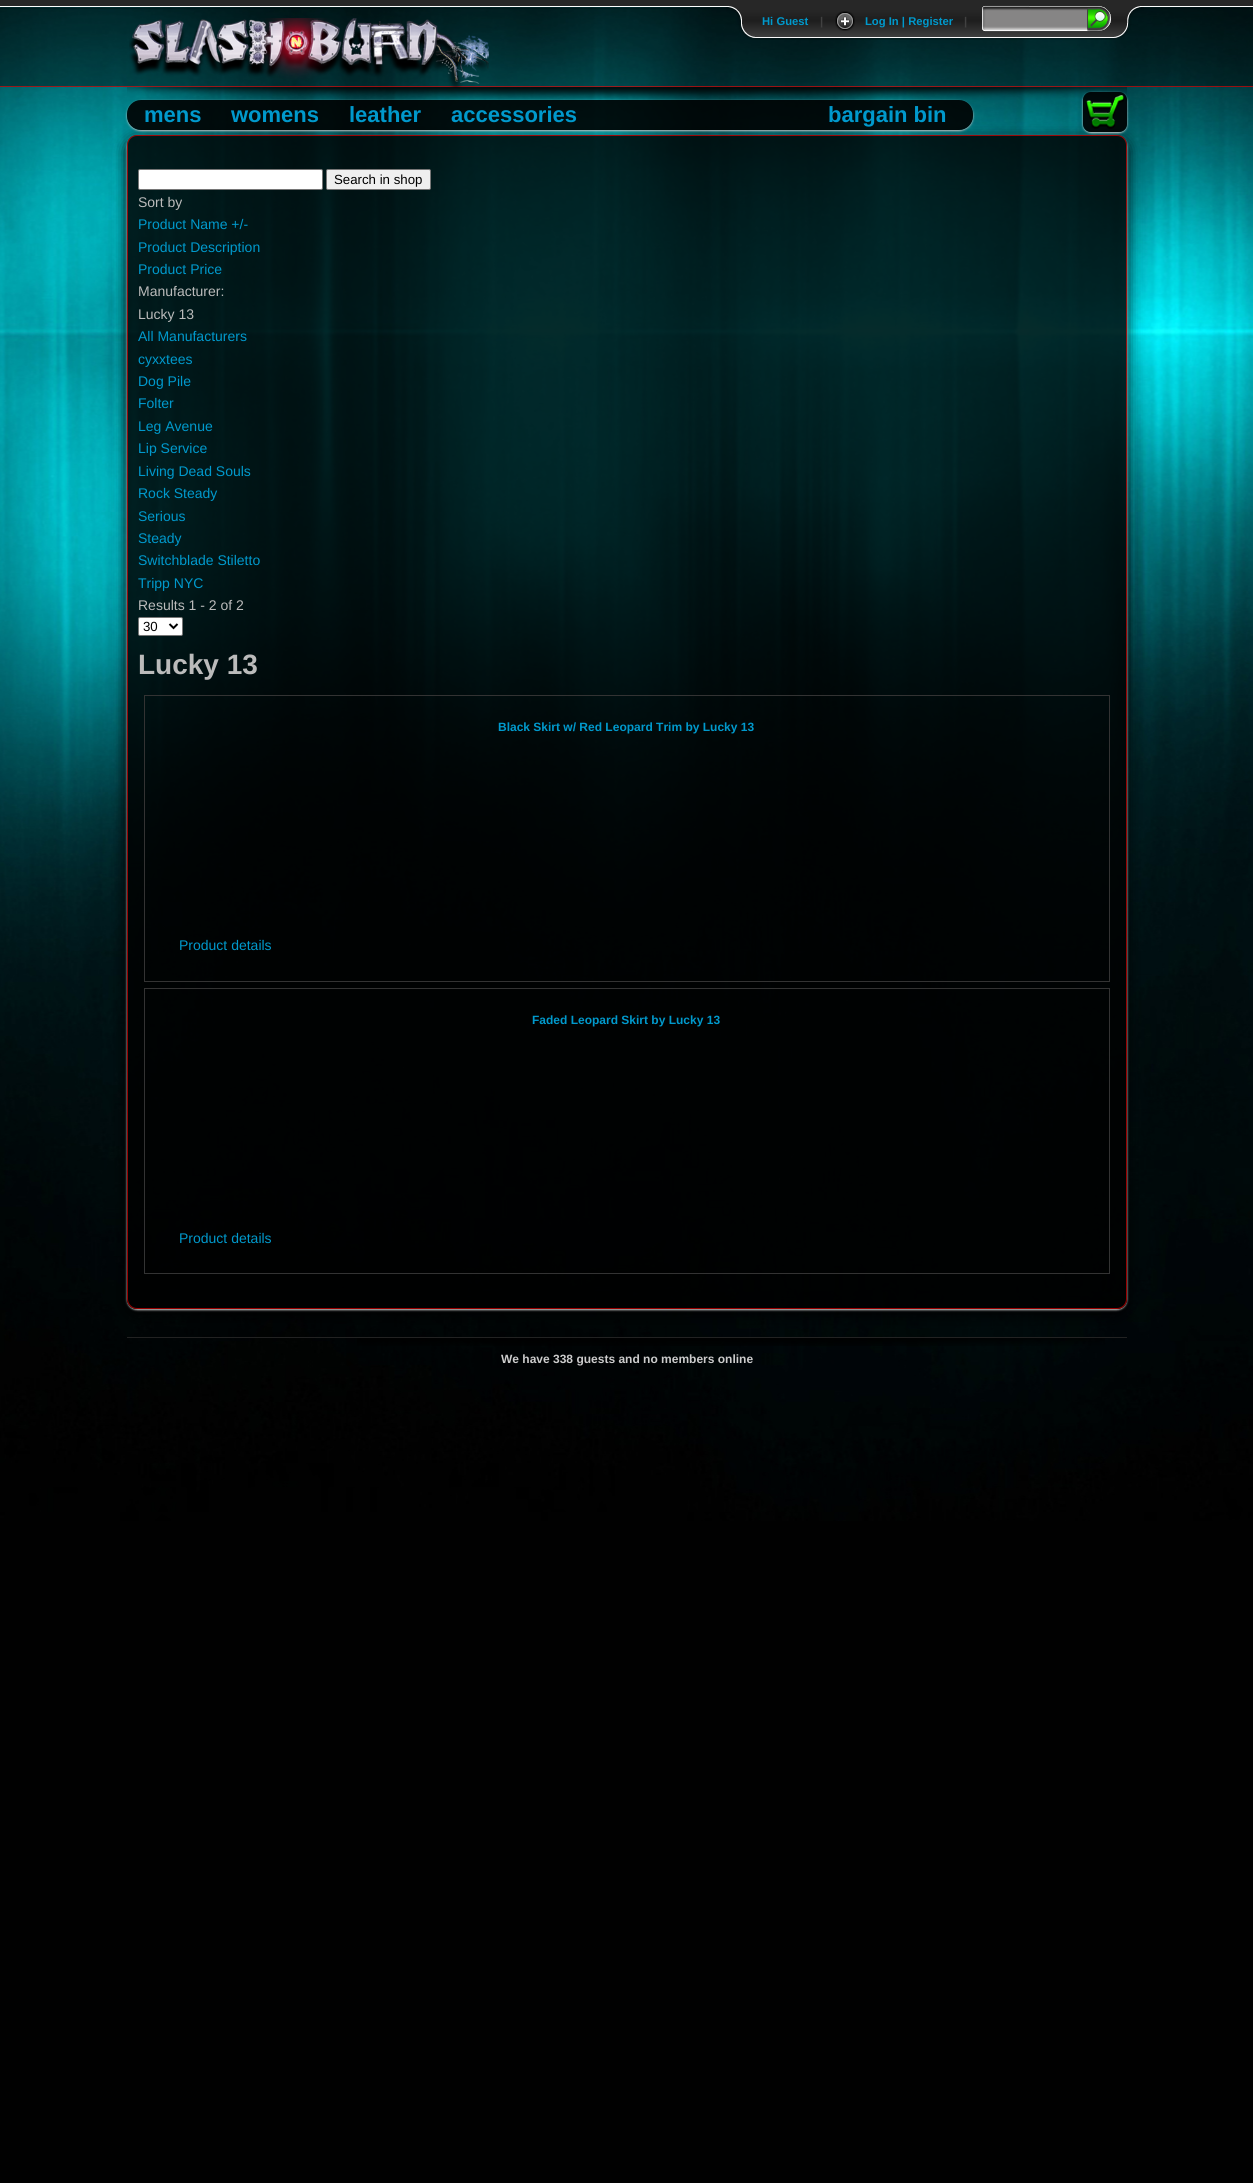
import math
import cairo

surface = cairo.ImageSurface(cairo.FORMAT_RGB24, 1253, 2183)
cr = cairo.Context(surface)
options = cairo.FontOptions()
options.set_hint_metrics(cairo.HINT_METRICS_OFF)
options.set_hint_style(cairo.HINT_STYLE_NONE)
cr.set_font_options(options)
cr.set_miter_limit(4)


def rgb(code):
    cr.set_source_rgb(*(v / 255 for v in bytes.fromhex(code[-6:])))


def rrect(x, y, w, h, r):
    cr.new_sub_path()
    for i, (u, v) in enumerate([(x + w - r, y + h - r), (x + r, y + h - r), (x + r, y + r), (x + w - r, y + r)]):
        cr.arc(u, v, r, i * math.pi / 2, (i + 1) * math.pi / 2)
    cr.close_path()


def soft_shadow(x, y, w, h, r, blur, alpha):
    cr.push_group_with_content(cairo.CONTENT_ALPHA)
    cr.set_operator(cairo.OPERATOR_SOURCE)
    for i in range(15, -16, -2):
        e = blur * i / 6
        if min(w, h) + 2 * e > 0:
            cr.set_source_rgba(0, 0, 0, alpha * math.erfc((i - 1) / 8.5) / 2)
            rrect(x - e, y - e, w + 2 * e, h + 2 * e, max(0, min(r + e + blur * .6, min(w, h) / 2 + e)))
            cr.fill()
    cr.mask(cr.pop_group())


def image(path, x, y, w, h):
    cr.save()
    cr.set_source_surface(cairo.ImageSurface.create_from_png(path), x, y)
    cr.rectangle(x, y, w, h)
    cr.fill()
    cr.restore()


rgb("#010101")
cr.paint()
image("img/1.png", 0, 7, 1253, 1514)
cr.set_source_rgba(0, 0, 0, 0.4)
cr.rectangle(0, 8, 1253, 79)
cr.fill()
image("img/2.png", 0, 0, 1253, 9)
image("img/3.png", 726, 6, 30, 34)
image("img/4.png", 756, 6, 58, 34)
image("img/5.png", 814, 6, 15, 34)
image("img/6.png", 829, 6, 129, 34)
image("img/7.png", 835, 11, 20, 20)
image("img/8.png", 958, 6, 16, 34)
image("img/9.png", 974, 6, 140, 34)
image("img/10.png", 982, 5, 108, 27)
image("img/11.png", 1087, 6, 25, 26)
image("img/12.png", 1114, 6, 30, 34)
cr.set_source_rgba(1, 0, 0, 0.6)
cr.rectangle(0, 86, 1253, 1)
cr.fill()
image("img/14.png", 127, 87, 1000, 13)
image("img/13.png", 129, 18, 360, 70)
cr.save()
cr.set_fill_rule(cairo.FILL_RULE_EVEN_ODD)
cr.new_path()
cr.move_to(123, 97)
cr.line_to(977, 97)
cr.line_to(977, 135)
cr.line_to(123, 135)
cr.close_path()
cr.move_to(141, 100)
cr.line_to(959, 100)
cr.curve_to(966.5, 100, 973, 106.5, 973, 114)
cr.line_to(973, 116)
cr.curve_to(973, 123.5, 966.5, 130, 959, 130)
cr.line_to(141, 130)
cr.curve_to(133.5, 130, 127, 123.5, 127, 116)
cr.line_to(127, 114)
cr.curve_to(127, 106.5, 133.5, 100, 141, 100)
cr.close_path()
cr.clip()
rgb("#cccccc")
soft_shadow(127, 101, 846, 30, 14, 1, 1)
cr.restore()
cr.save()
cr.set_fill_rule(cairo.FILL_RULE_EVEN_ODD)
cr.new_path()
cr.move_to(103, 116)
cr.line_to(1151, 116)
cr.line_to(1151, 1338)
cr.line_to(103, 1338)
cr.close_path()
cr.move_to(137, 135)
cr.line_to(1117, 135)
cr.curve_to(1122.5, 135, 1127, 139.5, 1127, 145)
cr.line_to(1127, 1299)
cr.curve_to(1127, 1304.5, 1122.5, 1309, 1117, 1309)
cr.line_to(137, 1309)
cr.curve_to(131.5, 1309, 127, 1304.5, 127, 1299)
cr.line_to(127, 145)
cr.curve_to(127, 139.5, 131.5, 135, 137, 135)
cr.close_path()
cr.clip()
rgb("#000000")
soft_shadow(127, 140, 1000, 1174, 10, 7.5, 1)
cr.restore()
cr.set_source_rgba(0, 0, 0, 0.9)
rrect(127, 100, 846, 30, 14)
cr.fill()
cr.save()
cr.set_fill_rule(cairo.FILL_RULE_EVEN_ODD)
cr.new_path()
cr.move_to(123, 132)
cr.line_to(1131, 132)
cr.line_to(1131, 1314)
cr.line_to(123, 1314)
cr.close_path()
cr.move_to(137, 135)
cr.line_to(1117, 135)
cr.curve_to(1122.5, 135, 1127, 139.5, 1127, 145)
cr.line_to(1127, 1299)
cr.curve_to(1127, 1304.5, 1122.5, 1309, 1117, 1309)
cr.line_to(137, 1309)
cr.curve_to(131.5, 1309, 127, 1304.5, 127, 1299)
cr.line_to(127, 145)
cr.curve_to(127, 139.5, 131.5, 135, 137, 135)
cr.close_path()
cr.clip()
rgb("#cccccc")
soft_shadow(127, 136, 1000, 1174, 10, 1, 1)
cr.restore()
cr.set_source_rgba(0, 0, 0, 0.83)
rrect(127, 135, 1000, 1174, 10)
cr.fill()
rrect(127.5, 135.5, 999, 1173, 9.5)
cr.set_source_rgba(1, 0, 0, 0.6)
cr.set_line_width(1)
cr.stroke()
cr.save()
cr.set_fill_rule(cairo.FILL_RULE_EVEN_ODD)
cr.new_path()
cr.move_to(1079, 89)
cr.line_to(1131, 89)
cr.line_to(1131, 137)
cr.line_to(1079, 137)
cr.close_path()
cr.move_to(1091, 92)
cr.line_to(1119, 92)
cr.curve_to(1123.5, 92, 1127, 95.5, 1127, 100)
cr.line_to(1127, 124)
cr.curve_to(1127, 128.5, 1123.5, 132, 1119, 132)
cr.line_to(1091, 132)
cr.curve_to(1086.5, 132, 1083, 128.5, 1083, 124)
cr.line_to(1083, 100)
cr.curve_to(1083, 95.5, 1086.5, 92, 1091, 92)
cr.close_path()
cr.clip()
rgb("#cccccc")
soft_shadow(1083, 93, 44, 40, 8, 1, 1)
cr.restore()
cr.set_source_rgba(0, 0, 0, 0.9)
rrect(1083, 92, 44, 40, 8)
cr.fill()
image("img/15.png", 1086, 95, 38, 34)
rgb("#ffffff")
rrect(138.5, 169.5, 184, 20, 1.5)
cr.fill_preserve()
rgb("#767676")
cr.stroke()
rgb("#efefef")
rrect(326.5, 169.5, 104, 20, 1.5)
cr.fill_preserve()
rgb("#767676")
cr.stroke()
rgb("#ffffff")
rrect(138.5, 617.5, 44, 18, 1.5)
cr.fill_preserve()
rgb("#767676")
cr.stroke()
cr.new_path()
cr.move_to(169.5, 624)
cr.line_to(173.5, 628)
cr.line_to(177.5, 624)
rgb("#000000")
cr.set_line_width(2)
cr.stroke()
cr.rectangle(144.5, 695.5, 965, 286)
rgb("#333333")
cr.set_line_width(1)
cr.stroke()
cr.rectangle(144.5, 988.5, 965, 285)
cr.stroke()
image("img/16.png", 357, 1338, 748, 8)
rgb("#222222")
cr.rectangle(127, 1337, 1000, 1)
cr.fill()
cr.select_font_face("Liberation Sans", cairo.FONT_SLANT_NORMAL, cairo.FONT_WEIGHT_BOLD)
cr.set_font_size(11.25)
rgb("#0099cc")
cr.move_to(762, 25)
cr.show_text("Hi Guest")
rgb("#414141")
cr.move_to(820, 25)
cr.show_text("|")
rgb("#0099cc")
cr.move_to(865, 25)
cr.show_text("Log In | Register")
rgb("#414141")
cr.move_to(964, 25)
cr.show_text("|")
cr.set_font_size(22)
rgb("#0099cc")
for x, y, s in [
    (144, 122, "mens"),
    (231, 122, "womens"),
    (349, 122, "leather"),
    (451, 122, "accessories"),
    (828, 122, "bargain bin"),
]:
    cr.move_to(x, y)
    cr.show_text(s)
cr.select_font_face("Liberation Sans")
cr.set_font_size(13.25)
rgb("#000000")
cr.move_to(334, 184)
cr.show_text("Search in shop")
cr.set_font_size(14)
rgb("#bbbbbb")
cr.move_to(138, 207)
cr.show_text("Sort by")
rgb("#0099cc")
for x, y, s in [
    (138, 229, "Product Name +/-"),
    (138, 252, "Product Description"),
    (138, 274, "Product Price"),
]:
    cr.move_to(x, y)
    cr.show_text(s)
rgb("#bbbbbb")
cr.move_to(138, 296)
cr.show_text("Manufacturer:")
cr.move_to(138, 319)
cr.show_text("Lucky 13")
rgb("#0099cc")
for x, y, s in [
    (138, 341, "All Manufacturers"),
    (138, 364, "cyxxtees"),
    (138, 386, "Dog Pile"),
    (138, 408, "Folter"),
    (138, 431, "Leg Avenue"),
    (138, 453, "Lip Service"),
    (138, 476, "Living Dead Souls"),
    (138, 498, "Rock Steady"),
    (138, 521, "Serious"),
    (138, 543, "Steady"),
    (138, 565, "Switchblade Stiletto"),
    (138, 588, "Tripp NYC"),
]:
    cr.move_to(x, y)
    cr.show_text(s)
rgb("#bbbbbb")
cr.move_to(138, 610)
cr.show_text("Results 1 - 2 of 2")
cr.set_font_size(13.25)
rgb("#000000")
cr.move_to(143, 631)
cr.show_text("30")
cr.select_font_face("Liberation Sans", cairo.FONT_SLANT_NORMAL, cairo.FONT_WEIGHT_BOLD)
cr.set_font_size(28)
rgb("#bbbbbb")
cr.move_to(138, 674)
cr.show_text("Lucky 13")
cr.set_font_size(12)
rgb("#0099cc")
cr.move_to(498, 731)
cr.show_text("Black Skirt w/ Red Leopard Trim by Lucky 13")
cr.select_font_face("Liberation Sans")
cr.set_font_size(14)
cr.move_to(179, 950)
cr.show_text("Product details")
cr.select_font_face("Liberation Sans", cairo.FONT_SLANT_NORMAL, cairo.FONT_WEIGHT_BOLD)
cr.set_font_size(12)
cr.move_to(532, 1024)
cr.show_text("Faded Leopard Skirt by Lucky 13")
cr.select_font_face("Liberation Sans")
cr.set_font_size(14)
cr.move_to(179, 1243)
cr.show_text("Product details")
cr.select_font_face("Liberation Sans", cairo.FONT_SLANT_NORMAL, cairo.FONT_WEIGHT_BOLD)
cr.set_font_size(12)
rgb("#cccccc")
cr.move_to(501, 1363)
cr.show_text("We have 338 guests and no members online")
surface.write_to_png("page.png")
